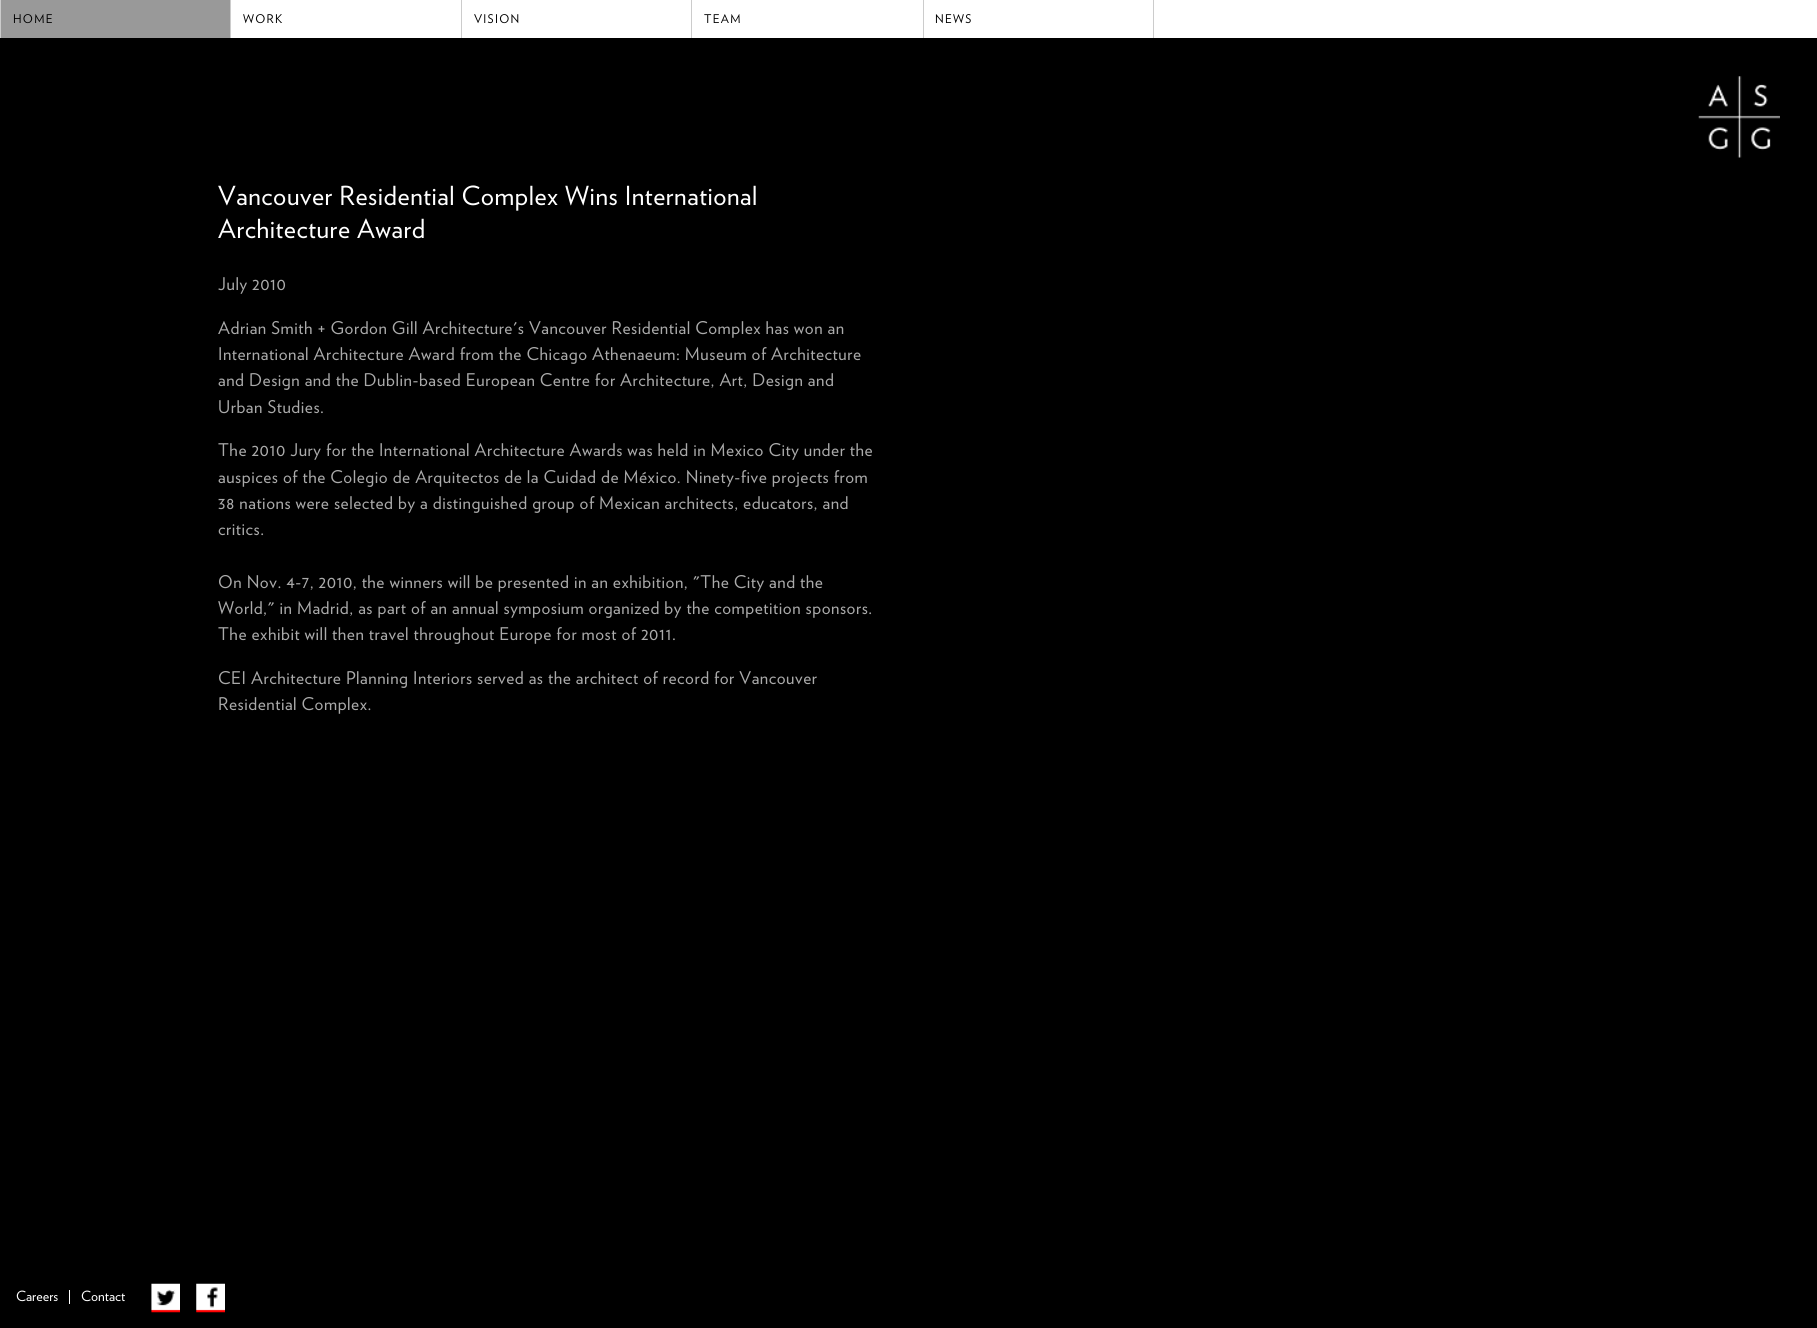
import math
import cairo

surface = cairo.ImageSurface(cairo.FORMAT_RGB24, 1817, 1328)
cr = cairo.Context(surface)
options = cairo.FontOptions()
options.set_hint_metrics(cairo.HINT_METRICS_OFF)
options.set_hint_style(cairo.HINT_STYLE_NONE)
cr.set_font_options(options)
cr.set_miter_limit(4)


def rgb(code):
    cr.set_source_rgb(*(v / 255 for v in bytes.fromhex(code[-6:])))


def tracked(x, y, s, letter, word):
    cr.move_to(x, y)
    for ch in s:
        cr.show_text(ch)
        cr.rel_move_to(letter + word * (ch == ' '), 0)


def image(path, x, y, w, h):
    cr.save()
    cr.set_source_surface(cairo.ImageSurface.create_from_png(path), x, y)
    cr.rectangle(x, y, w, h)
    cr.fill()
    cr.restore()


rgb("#000000")
cr.paint()
for x, y, w, h, color in [
    (231, 0, 1586, 38, "#ffffff"),
    (1, 0, 229, 38, "#999999"),
    (230, 0, 1, 38, "#cccccc"),
    (0, 0, 1, 38, "#cccccc"),
    (461, 0, 1, 38, "#cccccc"),
    (691, 0, 1, 38, "#cccccc"),
    (923, 0, 1, 38, "#cccccc"),
    (1153, 0, 1, 38, "#cccccc"),
]:
    rgb(color)
    cr.rectangle(x, y, w, h)
    cr.fill()
image("img/1.png", 1698, 76, 82, 82)
rgb("#ffffff")
cr.rectangle(69, 1290, 1, 14)
cr.fill()
image("img/2.png", 151, 1283, 29, 30)
image("img/3.png", 196, 1283, 29, 30)
cr.select_font_face("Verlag")
cr.set_font_size(12)
rgb("#000000")
for x, y, s in [
    (13, 23, "HOME"),
    (243, 23, "WORK"),
    (474, 23, "VISION"),
    (704, 23, "TEAM"),
    (935, 23, "NEWS"),
]:
    tracked(x, y, s, 1.25, 0)
cr.set_font_size(26.25)
rgb("#ffffff")
tracked(218, 205, "Vancouver Residential Complex Wins International", 0.53, 0)
tracked(218, 238, "Architecture Award", 0.53, 0)
cr.set_font_size(17.5)
rgb("#aaaaaa")
for x, y, s in [
    (218, 290, "July 2010"),
    (218, 334, "Adrian Smith + Gordon Gill Architecture's Vancouver Residential Complex has won an"),
    (218, 360, "International Architecture Award from the Chicago Athenaeum: Museum of Architecture"),
    (218, 386, "and Design and the Dublin-based European Centre for Architecture, Art, Design and"),
    (218, 413, "Urban Studies."),
    (218, 456, "The 2010 Jury for the International Architecture Awards was held in Mexico City under the"),
    (218, 483, "auspices of the Colegio de Arquitectos de la Cuidad de México. Ninety-five projects from"),
    (218, 509, "38 nations were selected by a distinguished group of Mexican architects, educators, and"),
    (218, 535, "critics."),
    (218, 588, "On Nov. 4-7, 2010, the winners will be presented in an exhibition, \"The City and the"),
    (218, 614, "World,\" in Madrid, as part of an annual symposium organized by the competition sponsors."),
    (218, 640, "The exhibit will then travel throughout Europe for most of 2011."),
    (218, 684, "CEI Architecture Planning Interiors served as the architect of record for Vancouver"),
    (218, 710, "Residential Complex."),
]:
    tracked(x, y, s, 0.53, 0)
cr.set_font_size(14)
rgb("#ffffff")
cr.move_to(16, 1301)
cr.show_text("Careers")
cr.move_to(81, 1301)
cr.show_text("Contact")
surface.write_to_png("page.png")
